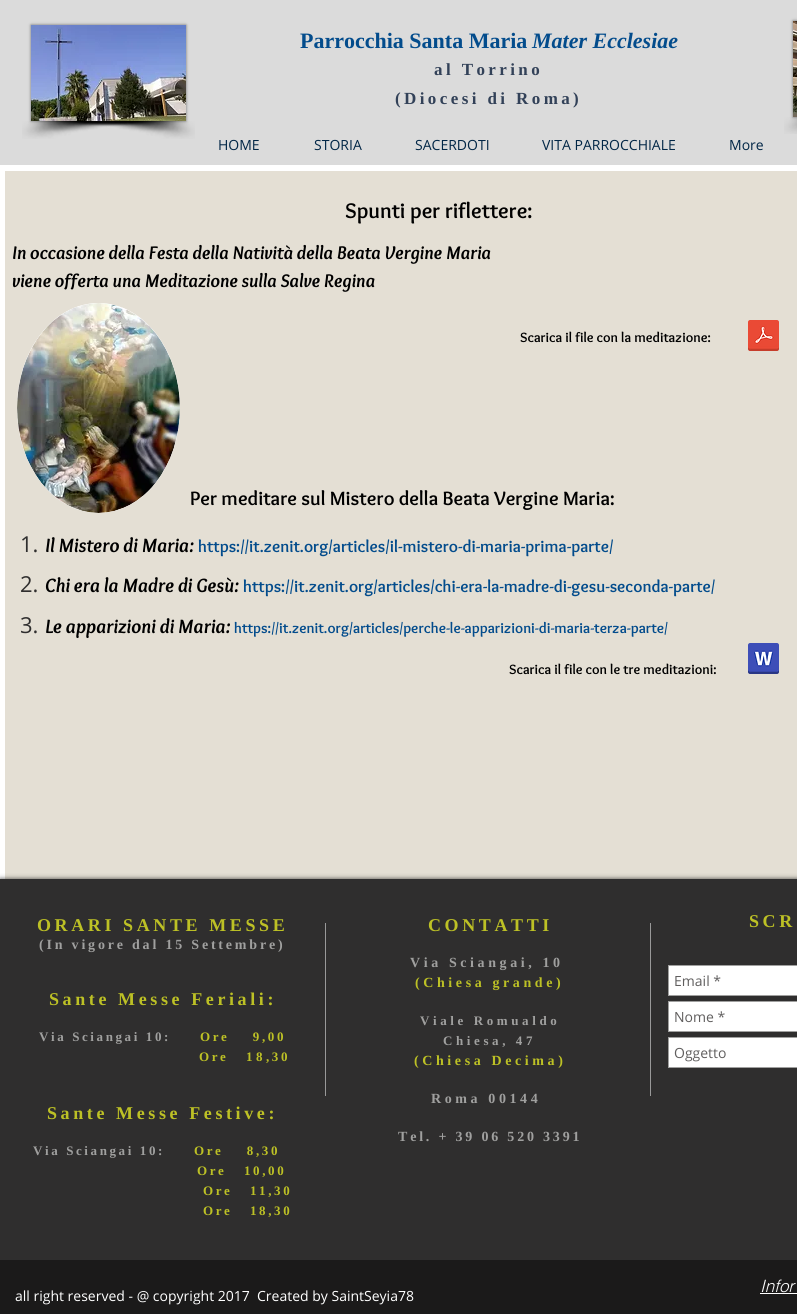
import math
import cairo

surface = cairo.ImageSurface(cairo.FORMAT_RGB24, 797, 1314)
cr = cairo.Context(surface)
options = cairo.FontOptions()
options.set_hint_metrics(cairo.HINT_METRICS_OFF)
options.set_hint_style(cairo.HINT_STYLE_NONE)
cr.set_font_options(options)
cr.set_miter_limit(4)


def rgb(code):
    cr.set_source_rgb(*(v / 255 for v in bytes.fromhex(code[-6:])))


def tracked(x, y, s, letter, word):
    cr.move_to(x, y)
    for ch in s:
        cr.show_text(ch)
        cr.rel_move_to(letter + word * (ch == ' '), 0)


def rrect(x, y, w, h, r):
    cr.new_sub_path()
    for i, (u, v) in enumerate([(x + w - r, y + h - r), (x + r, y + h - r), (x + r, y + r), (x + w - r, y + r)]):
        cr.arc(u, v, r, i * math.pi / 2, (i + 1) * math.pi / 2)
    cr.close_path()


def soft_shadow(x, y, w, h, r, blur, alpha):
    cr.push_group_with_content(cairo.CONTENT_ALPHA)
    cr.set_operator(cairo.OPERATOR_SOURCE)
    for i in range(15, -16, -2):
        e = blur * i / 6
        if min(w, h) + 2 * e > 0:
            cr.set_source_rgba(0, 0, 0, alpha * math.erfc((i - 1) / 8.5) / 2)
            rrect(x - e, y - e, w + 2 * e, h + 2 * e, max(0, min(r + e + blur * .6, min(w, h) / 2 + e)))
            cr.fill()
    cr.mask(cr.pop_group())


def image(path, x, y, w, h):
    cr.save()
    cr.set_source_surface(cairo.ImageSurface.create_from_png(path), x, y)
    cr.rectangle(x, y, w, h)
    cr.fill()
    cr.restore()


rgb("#ffffff")
cr.paint()
rgb("#dbdbdb")
cr.rectangle(0, 0, 797, 165)
cr.fill()
rgb("#000000")
soft_shadow(31, 25, 155, 96, 0, 1.5, 0.5)
image("img/1.png", 31, 25, 155, 96)
image("img/2.png", 22, 121, 154, 18)
image("img/3.png", 56, 121, 139, 18)
soft_shadow(793, 21, 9, 96, 0, 1.5, 0.5)
image("img/4.png", 793, 21, 4, 96)
image("img/5.png", 784, 117, 13, 17)
rgb("#e4dfd4")
cr.rectangle(5, 171, 792, 708)
cr.fill()
rgb("#ffffff")
cr.new_path()
cr.move_to(98.5, 303)
cr.curve_to(143.5, 303, 180, 350, 180, 408)
cr.curve_to(180, 466, 143.5, 513, 98.5, 513)
cr.curve_to(53.5, 513, 17, 466, 17, 408)
cr.curve_to(17, 350, 53.5, 303, 98.5, 303)
cr.close_path()
cr.fill()
image("img/6.png", 17, 303, 163, 210)
image("img/7.png", 748, 320, 31, 31)
image("img/8.png", 748, 643, 31, 31)
rgb("#000000")
soft_shadow(0, 879, 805, 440, 0, 2.5, 0.7)
for x, y, w, h, color in [
    (0, 879, 797, 381, "#2f2e2e"),
    (325, 923, 1, 173, "#999999"),
    (650, 923, 1, 173, "#999999"),
]:
    rgb(color)
    cr.rectangle(x, y, w, h)
    cr.fill()
rgb("#ffffff")
cr.rectangle(668.5, 965.5, 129, 30)
cr.fill_preserve()
rgb("#a0a09f")
cr.set_line_width(1)
cr.stroke()
rgb("#ffffff")
cr.rectangle(668.5, 1001.5, 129, 30)
cr.fill_preserve()
rgb("#a0a09f")
cr.stroke()
rgb("#ffffff")
cr.rectangle(668.5, 1037.5, 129, 30)
cr.fill_preserve()
rgb("#a0a09f")
cr.stroke()
rgb("#1b1a1a")
cr.rectangle(0, 1260, 797, 54)
cr.fill()
rgb("#ffffff")
cr.rectangle(760, 1293, 37, 1)
cr.fill()
cr.select_font_face("Liberation Serif", cairo.FONT_SLANT_NORMAL, cairo.FONT_WEIGHT_BOLD)
cr.set_font_size(22)
rgb("#034c8c")
cr.move_to(300, 48)
cr.show_text("Parrocchia Santa Maria")
cr.select_font_face("Liberation Serif", cairo.FONT_SLANT_ITALIC, cairo.FONT_WEIGHT_BOLD)
cr.move_to(532, 48)
cr.show_text("Mater Ecclesiae")
cr.select_font_face("Liberation Serif", cairo.FONT_SLANT_NORMAL, cairo.FONT_WEIGHT_BOLD)
cr.set_font_size(17)
rgb("#324158")
tracked(434, 75, "al Torrino", 3.4, 0)
tracked(395, 104, "(Diocesi di Roma)", 3.4, 0)
cr.select_font_face("Open Sans")
cr.set_font_size(14)
rgb("#012646")
for x, y, s in [
    (218, 150, "HOME"),
    (314, 150, "STORIA"),
    (415, 150, "SACERDOTI"),
    (542, 150, "VITA PARROCCHIALE"),
    (729, 150, "More"),
]:
    cr.move_to(x, y)
    cr.show_text(s)
cr.select_font_face("Overlock", cairo.FONT_SLANT_NORMAL, cairo.FONT_WEIGHT_BOLD)
cr.set_font_size(22)
rgb("#000000")
cr.move_to(345, 218)
cr.show_text("Spunti per riflettere:")
cr.select_font_face("Overlock", cairo.FONT_SLANT_ITALIC, cairo.FONT_WEIGHT_BOLD)
cr.set_font_size(19)
cr.move_to(12, 259)
cr.show_text("In occasione della Festa della Natività della Beata Vergine Maria")
cr.move_to(12, 287)
cr.show_text("viene offerta una Meditazione sulla Salve Regina")
cr.select_font_face("Overlock", cairo.FONT_SLANT_NORMAL, cairo.FONT_WEIGHT_BOLD)
cr.set_font_size(14)
cr.move_to(520, 342)
cr.show_text("Scarica il file con la meditazione:")
cr.set_font_size(20)
cr.move_to(190, 505)
cr.show_text("Per meditare sul Mistero della Beata Vergine Maria:")
cr.select_font_face("Open Sans")
cr.set_font_size(22)
rgb("#2f2e2e")
cr.move_to(20, 552)
cr.show_text("1.")
cr.select_font_face("Overlock", cairo.FONT_SLANT_ITALIC, cairo.FONT_WEIGHT_BOLD)
cr.set_font_size(20)
rgb("#000000")
cr.move_to(45, 552)
cr.show_text("Il Mistero di Maria:")
cr.select_font_face("Overlock", cairo.FONT_SLANT_NORMAL, cairo.FONT_WEIGHT_BOLD)
cr.set_font_size(17)
rgb("#034c8c")
cr.move_to(198, 552)
cr.show_text("https://it.zenit.org/articles/il-mistero-di-maria-prima-parte/")
cr.select_font_face("Open Sans")
cr.set_font_size(22)
rgb("#2f2e2e")
cr.move_to(20, 592)
cr.show_text("2.")
cr.select_font_face("Overlock", cairo.FONT_SLANT_ITALIC, cairo.FONT_WEIGHT_BOLD)
cr.set_font_size(20)
rgb("#000000")
cr.move_to(45, 592)
cr.show_text("Chi era la Madre di Gesù:")
cr.select_font_face("Overlock", cairo.FONT_SLANT_NORMAL, cairo.FONT_WEIGHT_BOLD)
cr.set_font_size(17)
rgb("#034c8c")
cr.move_to(243, 592)
cr.show_text("https://it.zenit.org/articles/chi-era-la-madre-di-gesu-seconda-parte/")
cr.select_font_face("Open Sans")
cr.set_font_size(22)
rgb("#2f2e2e")
cr.move_to(20, 633)
cr.show_text("3.")
cr.select_font_face("Overlock", cairo.FONT_SLANT_ITALIC, cairo.FONT_WEIGHT_BOLD)
cr.set_font_size(20)
rgb("#000000")
cr.move_to(45, 633)
cr.show_text("Le apparizioni di Maria:")
cr.select_font_face("Overlock", cairo.FONT_SLANT_NORMAL, cairo.FONT_WEIGHT_BOLD)
cr.set_font_size(15)
rgb("#034c8c")
cr.move_to(234, 633)
cr.show_text("https://it.zenit.org/articles/perche-le-apparizioni-di-maria-terza-parte/")
cr.set_font_size(14)
rgb("#000000")
cr.move_to(509, 674)
cr.show_text("Scarica il file con le tre meditazioni:")
cr.select_font_face("Liberation Serif", cairo.FONT_SLANT_NORMAL, cairo.FONT_WEIGHT_BOLD)
cr.set_font_size(18)
rgb("#bdc125")
tracked(37, 931, "ORARI SANTE MESSE", 3.6, 0)
cr.set_font_size(14)
rgb("#a0a09f")
tracked(39, 949, "(In vigore dal 15 Settembre)", 2.8, 0)
cr.set_font_size(18)
rgb("#bdc125")
tracked(49, 1005, "Sante Messe Feriali:", 3.6, 0)
cr.set_font_size(13)
rgb("#a0a09f")
tracked(39, 1041, "Via Sciangai 10:", 2.6, 0)
rgb("#bdc125")
tracked(200, 1041, "Ore    9,00", 2.6, 0)
tracked(199, 1061, "Ore", 2.6, 0)
tracked(246, 1061, "18", 3.6, 0)
tracked(266, 1061, ",30", 2.6, 0)
cr.set_font_size(18)
tracked(47, 1119, "Sante Messe Festive:", 3.6, 0)
cr.set_font_size(13)
rgb("#a0a09f")
tracked(33, 1155, "Via Sciangai 10:", 2.6, 0)
rgb("#bdc125")
for x, y, s in [
    (194, 1155, "Ore    8,30"),
    (197, 1175, "Ore   10,00"),
    (203, 1195, "Ore   11,30"),
    (203, 1215, "Ore   18,30"),
]:
    tracked(x, y, s, 2.6, 0)
cr.set_font_size(18)
tracked(428, 931, "CONTATTI", 3.6, 0)
cr.set_font_size(14)
rgb("#a0a09f")
tracked(410, 967, "Via Sciangai, 10", 3.6, 0)
rgb("#bdc125")
tracked(415, 987, "(Chiesa grande)", 3.6, 0)
cr.set_font_size(13)
rgb("#a0a09f")
tracked(420, 1025, "Viale Romualdo", 3.6, 0)
tracked(443, 1045, "Chiesa, 47", 3.6, 0)
cr.set_font_size(14)
rgb("#bdc125")
tracked(414, 1065, "(Chiesa Decima)", 3.6, 0)
rgb("#a0a09f")
tracked(431, 1103, "Roma 00144", 3.6, 0)
tracked(398, 1141, "Tel. + 39 06 520 3391", 2.8, 0)
cr.select_font_face("Open Sans")
rgb("#605e5e")
for x, y, s in [
    (674, 986, "Email *"),
    (674, 1022, "Nome *"),
    (674, 1058, "Oggetto"),
]:
    cr.move_to(x, y)
    cr.show_text(s)
cr.select_font_face("Liberation Serif", cairo.FONT_SLANT_NORMAL, cairo.FONT_WEIGHT_BOLD)
cr.set_font_size(18)
rgb("#bdc125")
tracked(749, 927, "SCR", 3.6, 0)
cr.select_font_face("helvetica Light", cairo.FONT_SLANT_ITALIC)
cr.set_font_size(17)
rgb("#ffffff")
cr.move_to(760, 1292)
cr.show_text("Infor")
cr.select_font_face("Open Sans")
cr.set_font_size(14)
cr.move_to(15, 1301)
cr.show_text("all right reserved - @ copyright 2017  Created by SaintSeyia78")
surface.write_to_png("page.png")
